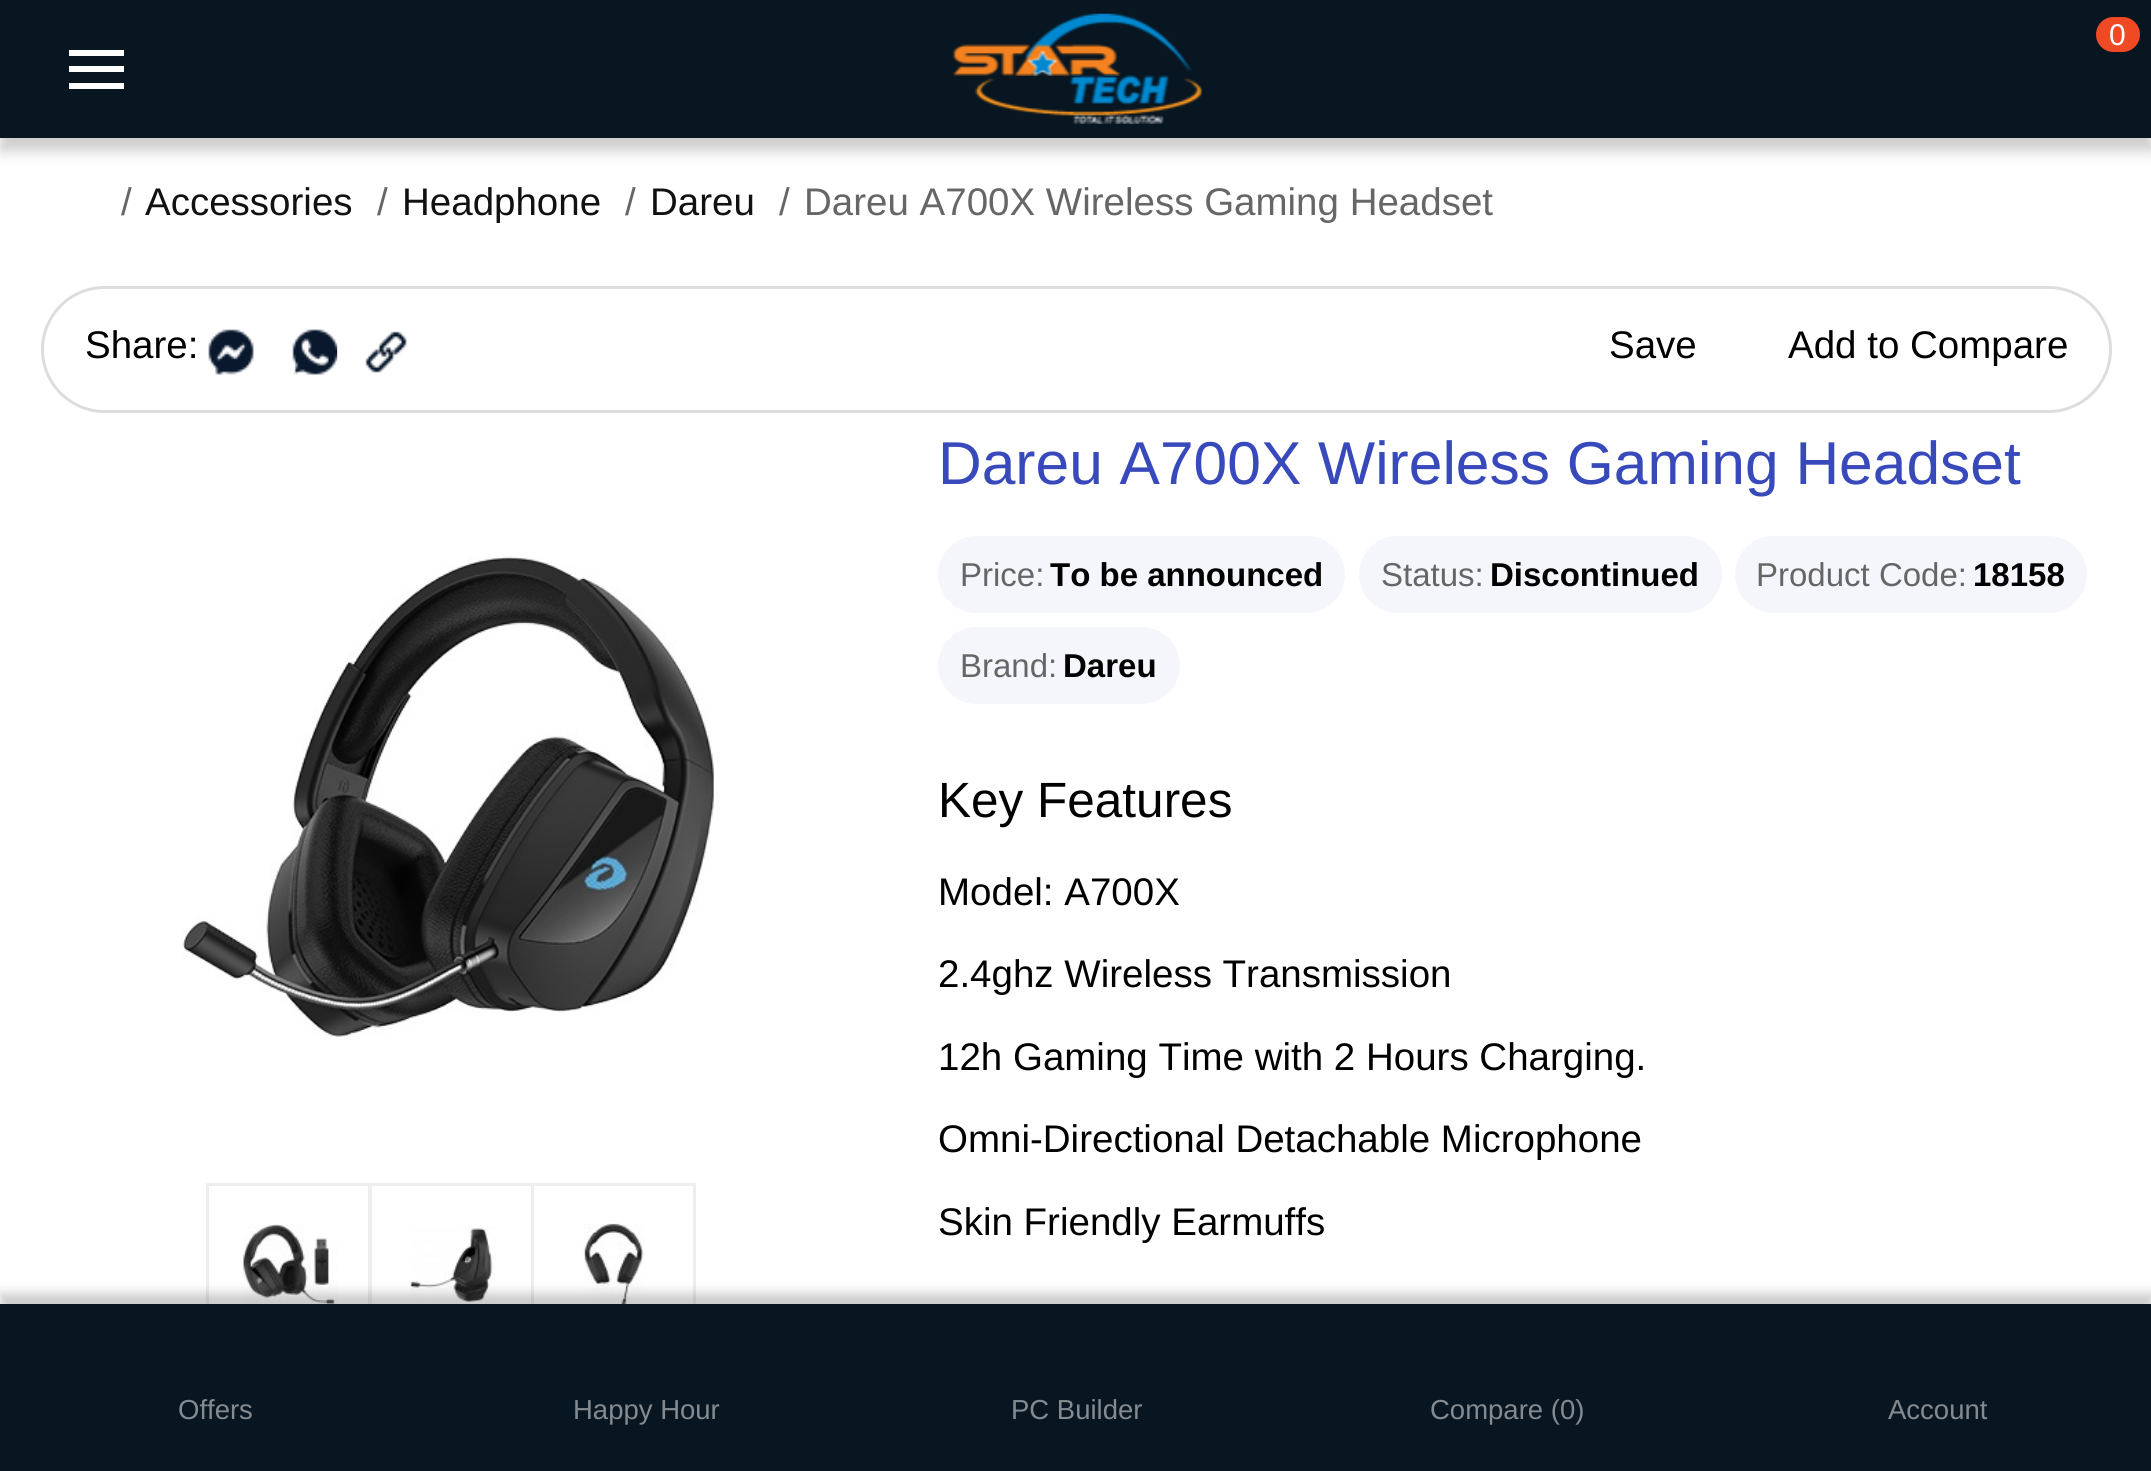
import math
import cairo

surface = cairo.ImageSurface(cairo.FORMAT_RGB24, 2151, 1471)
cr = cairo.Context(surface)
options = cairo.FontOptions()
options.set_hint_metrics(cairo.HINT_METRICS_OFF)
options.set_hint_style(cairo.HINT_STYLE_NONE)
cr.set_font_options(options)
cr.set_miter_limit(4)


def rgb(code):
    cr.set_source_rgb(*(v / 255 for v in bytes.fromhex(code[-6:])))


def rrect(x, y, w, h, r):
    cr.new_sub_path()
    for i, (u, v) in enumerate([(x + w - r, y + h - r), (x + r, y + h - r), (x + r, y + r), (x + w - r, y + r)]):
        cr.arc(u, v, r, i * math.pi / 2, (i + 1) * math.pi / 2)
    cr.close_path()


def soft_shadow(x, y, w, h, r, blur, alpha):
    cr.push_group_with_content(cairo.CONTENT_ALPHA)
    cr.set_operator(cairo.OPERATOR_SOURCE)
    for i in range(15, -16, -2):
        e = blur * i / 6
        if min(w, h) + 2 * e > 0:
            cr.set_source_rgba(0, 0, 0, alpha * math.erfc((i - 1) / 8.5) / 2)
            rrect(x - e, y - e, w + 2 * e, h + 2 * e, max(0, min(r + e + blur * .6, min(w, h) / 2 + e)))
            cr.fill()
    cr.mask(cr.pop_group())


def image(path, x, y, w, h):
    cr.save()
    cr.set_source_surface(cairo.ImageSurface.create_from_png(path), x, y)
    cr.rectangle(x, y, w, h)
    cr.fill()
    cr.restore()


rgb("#ffffff")
cr.paint()
rgb("#000000")
soft_shadow(0, 14, 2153, 137, 0, 7, 0.2)
rgb("#081621")
cr.rectangle(0, 0, 2151, 138)
cr.fill()
image("img/1.png", 952, 13, 250, 111)
rgb("#ef4a23")
rrect(2096, 17, 44, 35, 17.5)
cr.fill()
for x, y, w, h, color in [
    (69, 50, 55, 6, "#ffffff"),
    (69, 66, 55, 6, "#ffffff"),
    (69, 83, 55, 6, "#ffffff"),
]:
    rgb(color)
    cr.rectangle(x, y, w, h)
    cr.fill()
cr.rectangle(207.5, 1184.5, 162, 162)
rgb("#eeeeee")
cr.set_line_width(3)
cr.stroke()
image("img/6.png", 242, 1224, 96, 80)
cr.rectangle(370.5, 1184.5, 162, 162)
cr.stroke()
image("img/7.png", 410, 1226, 86, 76)
cr.rectangle(532.5, 1184.5, 162, 162)
cr.stroke()
image("img/8.png", 583, 1223, 62, 81)
cr.set_source_rgba(1, 1, 1, 0.2)
cr.rectangle(206, 1301, 490, 3)
cr.fill()
rgb("#000000")
soft_shadow(0, 1293, 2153, 167, 0, 5.5, 0.2)
rgb("#081621")
cr.rectangle(0, 1304, 2151, 167)
cr.fill()
rrect(42.5, 287.5, 2068, 124, 62)
rgb("#dddddd")
cr.stroke()
image("img/2.png", 208, 329, 46, 46)
image("img/3.png", 292, 329, 46, 46)
image("img/4.png", 365, 331, 42, 42)
image("img/5.png", 182, 556, 532, 481)
rgb("#f5f6fc")
rrect(938, 536, 407, 77, 38.5)
cr.fill()
rrect(1359, 536, 363, 77, 38.5)
cr.fill()
rrect(1735, 536, 352, 77, 38.5)
cr.fill()
rrect(938, 627, 242, 77, 38.5)
cr.fill()
cr.select_font_face("Liberation Sans")
cr.set_font_size(30)
rgb("#ffffff")
cr.move_to(2109, 45)
cr.show_text("0")
cr.set_font_size(27.5)
rgb("#848b90")
for x, y, s in [
    (178, 1419, "Offers"),
    (573, 1419, "Happy Hour"),
    (1011, 1419, "PC Builder"),
    (1430, 1419, "Compare (0)"),
    (1888, 1419, "Account"),
]:
    cr.move_to(x, y)
    cr.show_text(s)
cr.set_font_size(38.5)
rgb("#666666")
cr.move_to(121, 215)
cr.show_text("/")
rgb("#111111")
cr.move_to(145, 215)
cr.show_text("Accessories")
rgb("#666666")
cr.move_to(377, 215)
cr.show_text("/")
rgb("#111111")
cr.move_to(402, 215)
cr.show_text("Headphone")
rgb("#666666")
cr.move_to(625, 215)
cr.show_text("/")
rgb("#111111")
cr.move_to(650, 215)
cr.show_text("Dareu")
rgb("#666666")
cr.move_to(779, 215)
cr.show_text("/")
cr.move_to(804, 215)
cr.show_text("Dareu A700X Wireless Gaming Headset")
rgb("#000000")
for x, y, s in [
    (85, 358, "Share:"),
    (1609, 358, "Save"),
    (1788, 358, "Add to Compare"),
]:
    cr.move_to(x, y)
    cr.show_text(s)
cr.set_font_size(60.5)
rgb("#3749bb")
cr.move_to(938, 484)
cr.show_text("Dareu A700X Wireless Gaming Headset")
cr.set_font_size(33)
rgb("#666666")
cr.move_to(960, 586)
cr.show_text("Price:")
cr.select_font_face("Liberation Sans", cairo.FONT_SLANT_NORMAL, cairo.FONT_WEIGHT_BOLD)
rgb("#000000")
cr.move_to(1050, 586)
cr.show_text("To be announced")
cr.select_font_face("Liberation Sans")
rgb("#666666")
cr.move_to(1381, 586)
cr.show_text("Status:")
cr.select_font_face("Liberation Sans", cairo.FONT_SLANT_NORMAL, cairo.FONT_WEIGHT_BOLD)
rgb("#000000")
cr.move_to(1490, 586)
cr.show_text("Discontinued")
cr.select_font_face("Liberation Sans")
rgb("#666666")
cr.move_to(1756, 586)
cr.show_text("Product Code:")
cr.select_font_face("Liberation Sans", cairo.FONT_SLANT_NORMAL, cairo.FONT_WEIGHT_BOLD)
rgb("#000000")
cr.move_to(1973, 586)
cr.show_text("18158")
cr.select_font_face("Liberation Sans")
rgb("#666666")
cr.move_to(960, 677)
cr.show_text("Brand:")
cr.select_font_face("Liberation Sans", cairo.FONT_SLANT_NORMAL, cairo.FONT_WEIGHT_BOLD)
rgb("#000000")
cr.move_to(1063, 677)
cr.show_text("Dareu")
cr.select_font_face("Liberation Sans")
cr.set_font_size(49.5)
cr.move_to(938, 817)
cr.show_text("Key Features")
cr.set_font_size(38.5)
for x, y, s in [
    (938, 905, "Model: A700X"),
    (938, 987, "2.4ghz Wireless Transmission"),
    (938, 1070, "12h Gaming Time with 2 Hours Charging."),
    (938, 1152, "Omni-Directional Detachable Microphone"),
    (938, 1235, "Skin Friendly Earmuffs"),
]:
    cr.move_to(x, y)
    cr.show_text(s)
surface.write_to_png("page.png")
